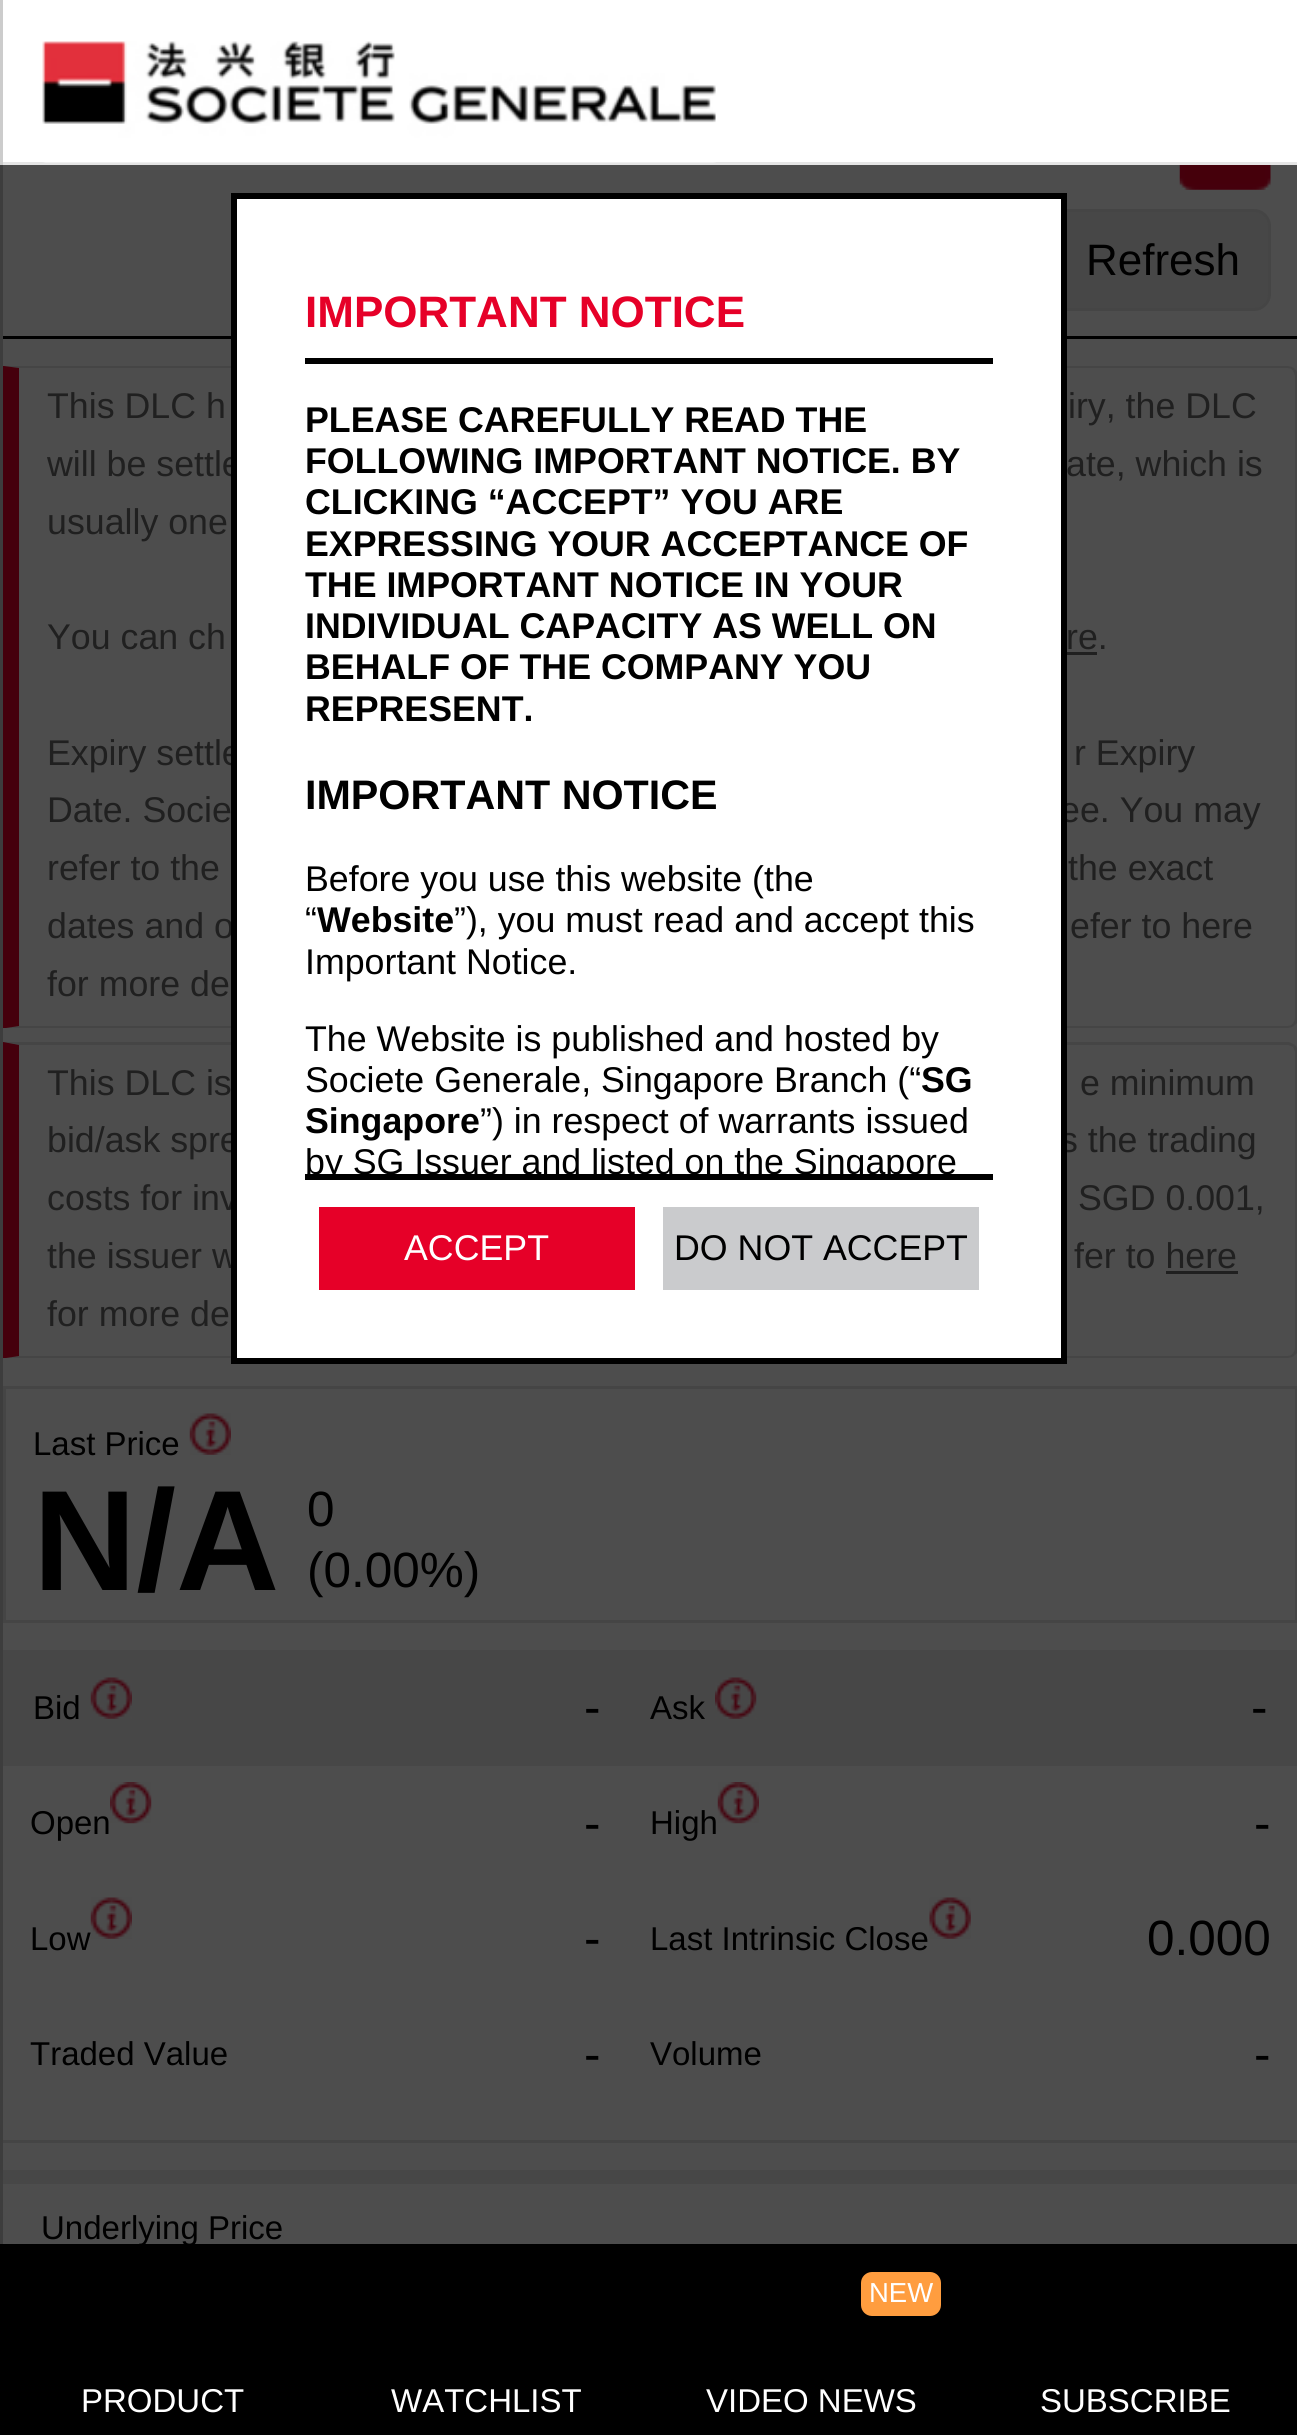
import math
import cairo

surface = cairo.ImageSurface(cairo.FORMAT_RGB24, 1297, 2435)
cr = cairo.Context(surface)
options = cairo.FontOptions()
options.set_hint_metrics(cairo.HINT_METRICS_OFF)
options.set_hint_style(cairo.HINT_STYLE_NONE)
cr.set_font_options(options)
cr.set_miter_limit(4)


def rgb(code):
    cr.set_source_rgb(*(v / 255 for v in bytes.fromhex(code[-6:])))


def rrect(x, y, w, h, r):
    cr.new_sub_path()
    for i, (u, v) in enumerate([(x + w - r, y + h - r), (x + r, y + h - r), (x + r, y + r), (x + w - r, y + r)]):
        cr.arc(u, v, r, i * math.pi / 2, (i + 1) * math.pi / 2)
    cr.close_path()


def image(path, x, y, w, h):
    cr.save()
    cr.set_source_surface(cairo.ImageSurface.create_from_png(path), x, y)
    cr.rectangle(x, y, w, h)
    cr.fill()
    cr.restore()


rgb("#4d4d4d")
cr.paint()
for x, y, w, h, color in [
    (0, 162, 1297, 3, "#e5e5e5"),
    (0, 0, 3, 165, "#cccccc"),
    (3, 0, 1294, 162, "#ffffff"),
]:
    rgb(color)
    cr.rectangle(x, y, w, h)
    cr.fill()
image("img/1.png", 42, 41, 674, 122)
rgb("#3d3d3d")
cr.rectangle(0, 165, 3, 2079)
cr.fill()
rgb("#000000")
cr.rectangle(3, 336, 1294, 3)
cr.fill()
image("img/2.png", 1179, 165, 92, 25)
rgb("#474747")
rrect(983.5, 210.5, 286, 99, 15.5)
cr.fill_preserve()
rgb("#454545")
cr.set_line_width(3)
cr.stroke()
cr.new_path()
cr.move_to(19, 368)
cr.line_to(1287, 368)
cr.curve_to(1290, 368, 1292, 369, 1293, 371)
cr.line_to(1295, 369)
cr.curve_to(1293, 367, 1290, 366, 1287, 366)
cr.line_to(4, 366)
cr.close_path()
cr.fill()
cr.new_path()
cr.move_to(1295, 369)
cr.curve_to(1297, 371, 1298, 374, 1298, 377)
cr.line_to(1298, 1018)
cr.curve_to(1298, 1021, 1297, 1024, 1295, 1025)
cr.line_to(1293, 1023)
cr.curve_to(1294, 1022, 1295, 1020, 1295, 1018)
cr.line_to(1295, 377)
cr.curve_to(1295, 375, 1294, 372, 1293, 371)
cr.close_path()
cr.fill()
cr.new_path()
cr.move_to(1295, 1025)
cr.curve_to(1293, 1027, 1290, 1028, 1287, 1028)
cr.line_to(6, 1028)
cr.line_to(19, 1026)
cr.line_to(1287, 1026)
cr.curve_to(1290, 1026, 1292, 1025, 1293, 1023)
cr.close_path()
cr.fill()
rgb("#45000c")
cr.new_path()
cr.move_to(3, 366)
cr.line_to(3, 1028)
cr.line_to(6, 1028)
cr.line_to(19, 1026)
cr.line_to(19, 368)
cr.line_to(4, 366)
cr.close_path()
cr.fill()
rgb("#202020")
cr.rectangle(1067, 652, 30, 3)
cr.fill()
rgb("#454545")
cr.new_path()
cr.move_to(3, 1042)
cr.line_to(1289, 1042)
cr.curve_to(1291, 1043, 1293, 1044, 1295, 1045)
cr.line_to(1293, 1047)
cr.curve_to(1291, 1046, 1289, 1045, 1287, 1045)
cr.line_to(19, 1045)
cr.close_path()
cr.fill()
cr.new_path()
cr.move_to(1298, 1348)
cr.line_to(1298, 1053)
cr.curve_to(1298, 1050, 1297, 1047, 1295, 1045)
cr.line_to(1293, 1047)
cr.curve_to(1294, 1049, 1295, 1051, 1295, 1053)
cr.line_to(1295, 1348)
cr.curve_to(1295, 1350, 1294, 1352, 1293, 1353)
cr.line_to(1295, 1355)
cr.curve_to(1297, 1354, 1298, 1351, 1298, 1348)
cr.close_path()
cr.fill()
cr.new_path()
cr.move_to(1295, 1355)
cr.curve_to(1293, 1357, 1290, 1358, 1287, 1358)
cr.line_to(6, 1358)
cr.line_to(19, 1356)
cr.line_to(1287, 1356)
cr.curve_to(1290, 1356, 1292, 1355, 1293, 1353)
cr.close_path()
cr.fill()
rgb("#45000c")
cr.new_path()
cr.move_to(19, 1045)
cr.line_to(19, 1356)
cr.line_to(6, 1358)
cr.line_to(3, 1358)
cr.line_to(3, 1042)
cr.close_path()
cr.fill()
rgb("#202020")
cr.rectangle(1166, 1271, 72, 3)
cr.fill()
rgb("#454545")
cr.rectangle(3, 2140, 1294, 3)
cr.fill()
cr.rectangle(4.5, 1387.5, 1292, 234)
cr.stroke()
image("img/3.png", 189, 1413, 42, 42)
rgb("#474747")
cr.rectangle(3, 1650, 1294, 116)
cr.fill()
image("img/4.png", 90, 1677, 42, 42)
image("img/5.png", 715, 1677, 42, 42)
image("img/6.png", 110, 1782, 42, 42)
image("img/7.png", 717, 1782, 42, 42)
image("img/3.png", 90, 1897, 42, 42)
image("img/8.png", 929, 1897, 42, 42)
cr.rectangle(3, 2170, 1294, 14)
cr.fill()
rgb("#000000")
cr.rectangle(0, 2244, 1297, 191)
cr.fill()
rgb("#ff9d3f")
rrect(861, 2272, 80, 44, 11)
cr.fill()
cr.select_font_face("Liberation Sans")
cr.set_font_size(44)
rgb("#000000")
cr.move_to(1086, 275)
cr.show_text("Refresh")
cr.set_font_size(35.75)
rgb("#202020")
for x, y, s in [
    (47, 418, "This DLC h"),
    (1068, 418, "iry, the DLC"),
    (47, 476, "will be settle"),
    (1066, 476, "ate, which is"),
    (47, 534, "usually one"),
    (47, 649, "You can ch"),
    (1066, 649, "re."),
    (47, 765, "Expiry settle"),
    (1074, 765, "r Expiry"),
    (47, 822, "Date. Socie"),
    (1060, 822, "ee. You may"),
    (47, 880, "refer to the"),
    (1068, 880, "the exact"),
    (47, 938, "dates and o"),
    (1070, 938, "efer to here"),
    (47, 996, "for more de"),
    (47, 1095, "This DLC is"),
    (1080, 1095, "e minimum"),
    (47, 1152, "bid/ask spre"),
    (1060, 1152, "s the trading"),
    (47, 1210, "costs for inv"),
    (1078, 1210, "SGD 0.001,"),
    (47, 1268, "the issuer w"),
    (1074, 1268, "fer to here"),
    (47, 1326, "for more de"),
]:
    cr.move_to(x, y)
    cr.show_text(s)
cr.set_font_size(33)
rgb("#000000")
cr.move_to(33, 1455)
cr.show_text("Last Price")
cr.select_font_face("Liberation Sans", cairo.FONT_SLANT_NORMAL, cairo.FONT_WEIGHT_BOLD)
cr.set_font_size(143)
cr.move_to(33, 1590)
cr.show_text("N/A")
cr.select_font_face("Liberation Sans")
cr.set_font_size(49.5)
cr.move_to(307, 1526)
cr.show_text("0")
cr.move_to(307, 1587)
cr.show_text("(0.00%)")
cr.set_font_size(33)
cr.move_to(33, 1719)
cr.show_text("Bid")
cr.set_font_size(49.5)
cr.move_to(584, 1724)
cr.show_text("-")
cr.set_font_size(33)
cr.move_to(650, 1719)
cr.show_text("Ask")
cr.set_font_size(49.5)
cr.move_to(1251, 1724)
cr.show_text("-")
cr.set_font_size(33)
cr.move_to(30, 1834)
cr.show_text("Open")
cr.set_font_size(49.5)
cr.move_to(584, 1840)
cr.show_text("-")
cr.set_font_size(33)
cr.move_to(650, 1834)
cr.show_text("High")
cr.set_font_size(49.5)
cr.move_to(1254, 1840)
cr.show_text("-")
cr.set_font_size(33)
cr.move_to(30, 1950)
cr.show_text("Low")
cr.set_font_size(49.5)
cr.move_to(584, 1955)
cr.show_text("-")
cr.set_font_size(33)
cr.move_to(650, 1950)
cr.show_text("Last Intrinsic Close")
cr.set_font_size(49.5)
cr.move_to(1147, 1955)
cr.show_text("0.000")
cr.set_font_size(33)
cr.move_to(30, 2065)
cr.show_text("Traded Value")
cr.set_font_size(49.5)
cr.move_to(584, 2071)
cr.show_text("-")
cr.set_font_size(33)
cr.move_to(650, 2065)
cr.show_text("Volume")
cr.set_font_size(49.5)
cr.move_to(1254, 2071)
cr.show_text("-")
cr.set_font_size(33)
cr.move_to(41, 2239)
cr.show_text("Underlying Price")
rgb("#ffffff")
cr.rectangle(234, 196, 830, 1165)
cr.fill_preserve()
rgb("#000000")
cr.set_line_width(6)
cr.stroke()
cr.select_font_face("Liberation Sans", cairo.FONT_SLANT_NORMAL, cairo.FONT_WEIGHT_BOLD)
cr.set_font_size(44)
rgb("#e60028")
cr.move_to(305, 327)
cr.show_text("IMPORTANT NOTICE")
rgb("#000000")
cr.rectangle(305, 358, 688, 6)
cr.fill()
cr.rectangle(305, 1174, 688, 6)
cr.fill()
cr.set_font_size(35.75)
for x, y, s in [
    (305, 432, "PLEASE CAREFULLY READ THE"),
    (305, 473, "FOLLOWING IMPORTANT NOTICE. BY"),
    (305, 514, "CLICKING “ACCEPT” YOU ARE"),
    (305, 556, "EXPRESSING YOUR ACCEPTANCE OF"),
    (305, 597, "THE IMPORTANT NOTICE IN YOUR"),
    (305, 638, "INDIVIDUAL CAPACITY AS WELL ON"),
    (305, 679, "BEHALF OF THE COMPANY YOU"),
    (305, 721, "REPRESENT."),
]:
    cr.move_to(x, y)
    cr.show_text(s)
cr.set_font_size(41.25)
cr.move_to(305, 809)
cr.show_text("IMPORTANT NOTICE")
cr.select_font_face("Liberation Sans")
cr.set_font_size(35.75)
cr.move_to(305, 891)
cr.show_text("Before you use this website (the")
cr.move_to(305, 932)
cr.show_text("“")
cr.select_font_face("Liberation Sans", cairo.FONT_SLANT_NORMAL, cairo.FONT_WEIGHT_BOLD)
cr.move_to(317, 932)
cr.show_text("Website")
cr.select_font_face("Liberation Sans")
for x, y, s in [
    (454, 932, "”), you must read and accept this"),
    (305, 974, "Important Notice."),
    (305, 1051, "The Website is published and hosted by"),
    (305, 1092, "Societe Generale, Singapore Branch (“"),
]:
    cr.move_to(x, y)
    cr.show_text(s)
cr.select_font_face("Liberation Sans", cairo.FONT_SLANT_NORMAL, cairo.FONT_WEIGHT_BOLD)
cr.move_to(921, 1092)
cr.show_text("SG")
cr.move_to(305, 1133)
cr.show_text("Singapore")
cr.select_font_face("Liberation Sans")
cr.move_to(480, 1133)
cr.show_text("”) in respect of warrants issued")
cr.save()
cr.rectangle(305, 363, 688, 811)
cr.clip()
cr.move_to(305, 1174)
cr.show_text("by SG Issuer and listed on the Singapore")
cr.restore()
rgb("#e60028")
cr.rectangle(319, 1207, 316, 83)
cr.fill()
rgb("#ffffff")
cr.move_to(404, 1260)
cr.show_text("ACCEPT")
rgb("#cacbcd")
cr.rectangle(663, 1207, 316, 83)
cr.fill()
rgb("#000000")
cr.move_to(674, 1260)
cr.show_text("DO NOT ACCEPT")
cr.set_font_size(33)
rgb("#ffffff")
cr.move_to(81, 2412)
cr.show_text("PRODUCT")
cr.move_to(391, 2412)
cr.show_text("WATCHLIST")
cr.set_font_size(27.5)
cr.move_to(869, 2302)
cr.show_text("NEW")
cr.set_font_size(33)
cr.move_to(706, 2412)
cr.show_text("VIDEO NEWS")
cr.move_to(1040, 2412)
cr.show_text("SUBSCRIBE")
surface.write_to_png("page.png")
